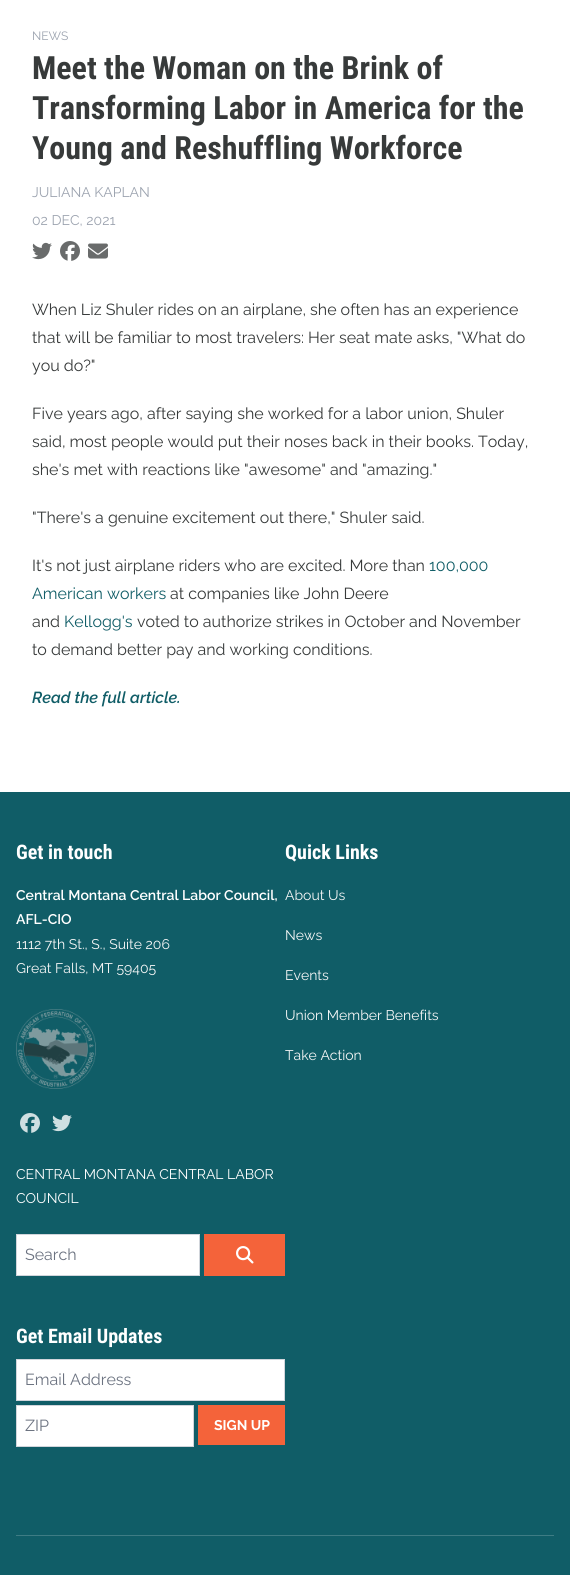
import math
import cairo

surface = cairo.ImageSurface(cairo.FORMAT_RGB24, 570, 1575)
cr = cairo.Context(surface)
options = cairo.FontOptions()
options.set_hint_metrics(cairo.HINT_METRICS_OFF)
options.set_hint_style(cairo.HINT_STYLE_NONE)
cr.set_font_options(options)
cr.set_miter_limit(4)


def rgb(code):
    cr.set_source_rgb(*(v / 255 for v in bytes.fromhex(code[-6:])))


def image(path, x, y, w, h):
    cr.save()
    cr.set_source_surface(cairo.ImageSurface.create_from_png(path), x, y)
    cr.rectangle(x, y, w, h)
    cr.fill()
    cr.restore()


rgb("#ffffff")
cr.paint()
image("img/1.png", 32, 242, 20, 18)
image("img/2.png", 60, 241, 20, 20)
image("img/3.png", 88, 243, 20, 16)
rgb("#105d67")
cr.rectangle(0, 792, 570, 783)
cr.fill()
image("img/4.png", 16, 1009, 80, 80)
image("img/5.png", 20, 1113, 20, 20)
image("img/6.png", 52, 1114, 20, 18)
rgb("#ffffff")
cr.rectangle(16.5, 1234.5, 183, 41)
cr.fill_preserve()
rgb("#d1d5db")
cr.set_line_width(1)
cr.stroke()
rgb("#f4633a")
cr.rectangle(204, 1234, 81, 42)
cr.fill()
image("img/7.png", 236, 1246, 18, 18)
rgb("#ffffff")
cr.rectangle(16.5, 1359.5, 268, 41)
cr.fill_preserve()
rgb("#d1d5db")
cr.stroke()
rgb("#ffffff")
cr.rectangle(16.5, 1405.5, 177, 41)
cr.fill_preserve()
rgb("#d1d5db")
cr.stroke()
rgb("#f4633a")
cr.rectangle(198, 1405, 87, 40)
cr.fill()
rgb("#3e7c84")
cr.rectangle(16, 1535, 538, 1)
cr.fill()
cr.select_font_face("Raleway")
cr.set_font_size(12)
rgb("#9ca3af")
cr.move_to(32, 40)
cr.show_text("NEWS")
cr.select_font_face("Roboto Condensed", cairo.FONT_SLANT_NORMAL, cairo.FONT_WEIGHT_BOLD)
cr.set_font_size(32)
rgb("#373a3a")
for x, y, s in [
    (32, 79, "Meet the Woman on the Brink of"),
    (32, 119, "Transforming Labor in America for the"),
    (32, 159, "Young and Reshuffling Workforce"),
]:
    cr.move_to(x, y)
    cr.show_text(s)
cr.select_font_face("Raleway")
cr.set_font_size(14)
rgb("#9ca3af")
cr.move_to(32, 197)
cr.show_text("JULIANA KAPLAN")
cr.move_to(32, 225)
cr.show_text("02 DEC, 2021")
cr.set_font_size(16)
rgb("#373a3a")
for x, y, s in [
    (32, 315, "When Liz Shuler rides on an airplane, she often has an experience"),
    (32, 343, "that will be familiar to most travelers: Her seat mate asks, \"What do"),
    (32, 371, "you do?\""),
    (32, 419, "Five years ago, after saying she worked for a labor union, Shuler"),
    (32, 447, "said, most people would put their noses back in their books. Today,"),
    (32, 475, "she's met with reactions like \"awesome\" and \"amazing.\""),
    (32, 523, "\"There's a genuine excitement out there,\" Shuler said."),
    (32, 571, "It's not just airplane riders who are excited. More than"),
]:
    cr.move_to(x, y)
    cr.show_text(s)
rgb("#105d67")
cr.move_to(429, 571)
cr.show_text("100,000")
cr.move_to(32, 599)
cr.show_text("American workers")
rgb("#373a3a")
cr.move_to(170, 599)
cr.show_text("at companies like John Deere")
cr.move_to(32, 627)
cr.show_text("and")
rgb("#105d67")
cr.move_to(64, 627)
cr.show_text("Kellogg's")
rgb("#373a3a")
cr.move_to(137, 627)
cr.show_text("voted to authorize strikes in October and November")
cr.move_to(32, 655)
cr.show_text("to demand better pay and working conditions.")
cr.select_font_face("Raleway SemiBold", cairo.FONT_SLANT_ITALIC)
rgb("#105d67")
cr.move_to(32, 703)
cr.show_text("Read the full article.")
cr.select_font_face("Roboto Condensed", cairo.FONT_SLANT_NORMAL, cairo.FONT_WEIGHT_BOLD)
cr.set_font_size(20)
rgb("#ffffff")
cr.move_to(16, 859)
cr.show_text("Get in touch")
cr.select_font_face("Raleway SemiBold")
cr.set_font_size(14)
cr.move_to(16, 900)
cr.show_text("Central Montana Central Labor Council,")
cr.move_to(16, 924)
cr.show_text("AFL-CIO")
cr.select_font_face("Raleway")
rgb("#f7f7f7")
cr.move_to(16, 949)
cr.show_text("1112 7th St., S., Suite 206")
cr.move_to(16, 973)
cr.show_text("Great Falls, MT 59405")
rgb("#ffffff")
cr.move_to(16, 1179)
cr.show_text("CENTRAL MONTANA CENTRAL LABOR")
cr.move_to(16, 1203)
cr.show_text("COUNCIL")
cr.select_font_face("Roboto Condensed", cairo.FONT_SLANT_NORMAL, cairo.FONT_WEIGHT_BOLD)
cr.set_font_size(20)
cr.move_to(285, 859)
cr.show_text("Quick Links")
cr.select_font_face("Raleway")
cr.set_font_size(14)
rgb("#f7f7f7")
for x, y, s in [
    (285, 900, "About Us"),
    (285, 940, "News"),
    (285, 980, "Events"),
    (285, 1020, "Union Member Benefits"),
    (285, 1060, "Take Action"),
]:
    cr.move_to(x, y)
    cr.show_text(s)
cr.set_font_size(16)
rgb("#6b7280")
cr.move_to(25, 1260)
cr.show_text("Search")
cr.select_font_face("Roboto Condensed", cairo.FONT_SLANT_NORMAL, cairo.FONT_WEIGHT_BOLD)
cr.set_font_size(20)
rgb("#ffffff")
cr.move_to(16, 1343)
cr.show_text("Get Email Updates")
cr.select_font_face("Raleway")
cr.set_font_size(16)
rgb("#6b7280")
cr.move_to(25, 1385)
cr.show_text("Email Address")
cr.move_to(25, 1431)
cr.show_text("ZIP")
cr.select_font_face("Raleway", cairo.FONT_SLANT_NORMAL, cairo.FONT_WEIGHT_BOLD)
cr.set_font_size(14)
rgb("#ffffff")
cr.move_to(214, 1430)
cr.show_text("SIGN UP")
surface.write_to_png("page.png")
